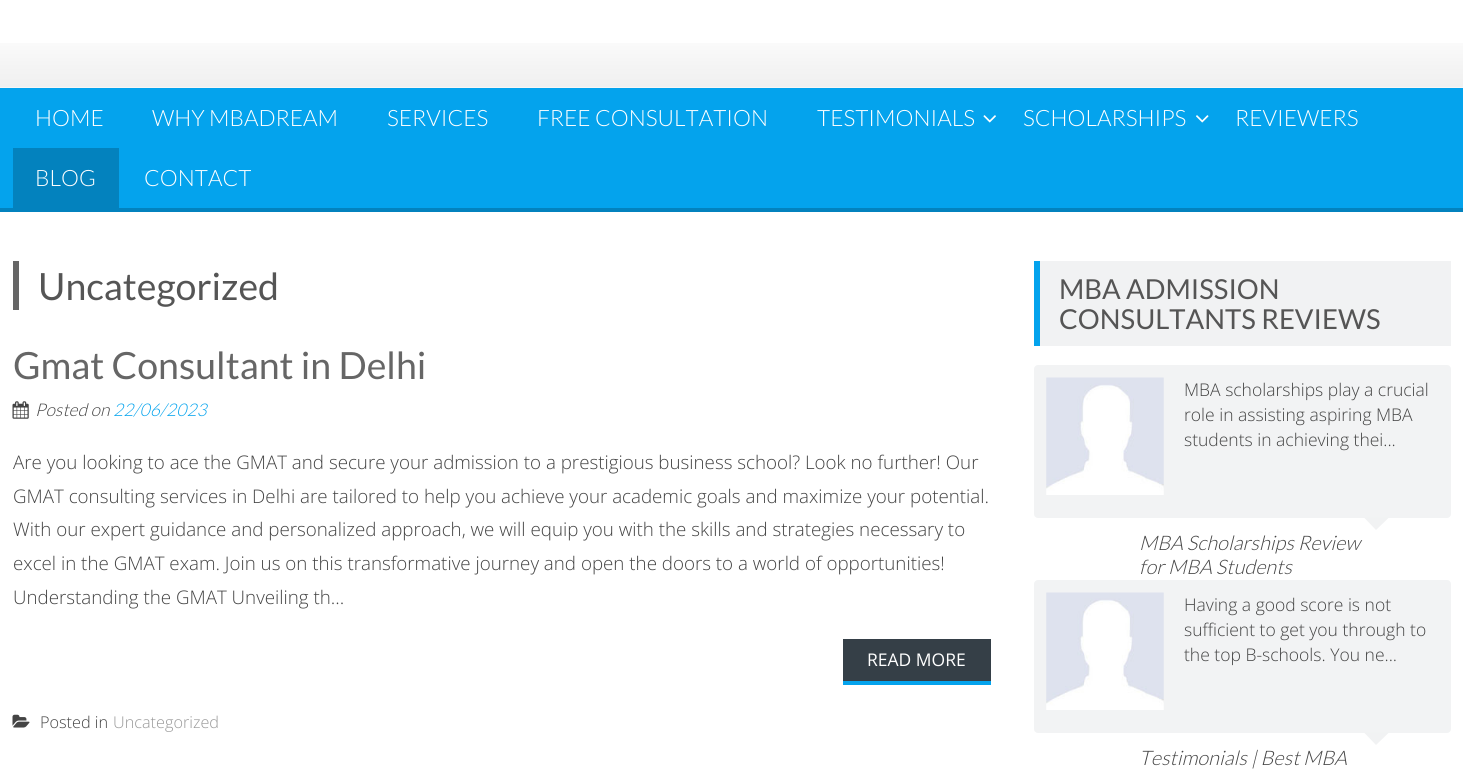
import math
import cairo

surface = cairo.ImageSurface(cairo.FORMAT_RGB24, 1463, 773)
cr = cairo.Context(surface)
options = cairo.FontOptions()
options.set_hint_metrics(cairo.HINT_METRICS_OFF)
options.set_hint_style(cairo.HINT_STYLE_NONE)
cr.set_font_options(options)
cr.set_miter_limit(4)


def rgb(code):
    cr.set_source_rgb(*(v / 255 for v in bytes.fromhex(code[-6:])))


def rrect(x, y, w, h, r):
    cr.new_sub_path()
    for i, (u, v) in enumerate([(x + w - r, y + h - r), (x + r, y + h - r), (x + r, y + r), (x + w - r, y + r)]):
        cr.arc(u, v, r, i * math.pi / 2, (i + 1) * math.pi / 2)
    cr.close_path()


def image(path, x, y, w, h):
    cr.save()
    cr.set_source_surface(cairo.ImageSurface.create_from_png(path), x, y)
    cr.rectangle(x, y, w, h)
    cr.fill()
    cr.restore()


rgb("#ffffff")
cr.paint()
image("img/1.png", 0, 43, 1463, 45)
rgb("#04a3ed")
cr.rectangle(0, 88, 1463, 120)
cr.fill()
rgb("#0382be")
cr.rectangle(0, 208, 1463, 4)
cr.fill()
image("img/2.png", 983, 115, 13, 8)
image("img/3.png", 1196, 115, 13, 8)
cr.rectangle(13, 148, 106, 60)
cr.fill()
rgb("#666666")
cr.rectangle(13, 261, 6, 49)
cr.fill()
image("img/4.png", 12, 401, 17, 18)
rgb("#353f47")
cr.rectangle(843, 639, 148, 42)
cr.fill()
rgb("#04a3ed")
cr.rectangle(843, 681, 148, 4)
cr.fill()
image("img/5.png", 12, 714, 18, 14)
rgb("#f1f2f3")
cr.rectangle(1040, 261, 411, 85)
cr.fill()
rgb("#04a3ed")
cr.rectangle(1034, 261, 6, 85)
cr.fill()
rgb("#f2f3f4")
rrect(1034, 365, 417, 153, 4)
cr.fill()
image("img/6.png", 1046, 377, 118, 118)
rgb("#f1f2f3")
cr.new_path()
cr.move_to(1364, 517.5)
cr.line_to(1389, 517.5)
cr.line_to(1376, 530)
cr.close_path()
cr.fill()
rgb("#f2f3f4")
rrect(1034, 580, 417, 153, 4)
cr.fill()
image("img/6.png", 1046, 592, 118, 118)
rgb("#f1f2f3")
cr.new_path()
cr.move_to(1364, 732.5)
cr.line_to(1389, 732.5)
cr.line_to(1376, 745)
cr.close_path()
cr.fill()
cr.select_font_face("Lato Light")
cr.set_font_size(22.5)
rgb("#ffffff")
for x, y, s in [
    (35, 126, "HOME"),
    (152, 126, "WHY MBADREAM"),
    (387, 126, "SERVICES"),
    (537, 126, "FREE CONSULTATION"),
    (817, 126, "TESTIMONIALS"),
    (1023, 126, "SCHOLARSHIPS"),
    (1235, 126, "REVIEWERS"),
    (35, 186, "BLOG"),
    (144, 186, "CONTACT"),
]:
    cr.move_to(x, y)
    cr.show_text(s)
cr.select_font_face("Lato")
cr.set_font_size(37.5)
rgb("#555555")
cr.move_to(38, 300)
cr.show_text("Uncategorized")
rgb("#666666")
cr.move_to(13, 379)
cr.show_text("Gmat Consultant in Delhi")
cr.select_font_face("Lato Light", cairo.FONT_SLANT_ITALIC)
cr.set_font_size(17.5)
rgb("#444444")
cr.move_to(35, 416)
cr.show_text("Posted on")
rgb("#04a3ed")
cr.move_to(113, 416)
cr.show_text("22/06/2023")
cr.select_font_face("Open Sans Light")
cr.set_font_size(18.75)
rgb("#444444")
for x, y, s in [
    (13, 469, "Are you looking to ace the GMAT and secure your admission to a prestigious business school? Look no further! Our"),
    (13, 503, "GMAT consulting services in Delhi are tailored to help you achieve your academic goals and maximize your potential."),
    (13, 536, "With our expert guidance and personalized approach, we will equip you with the skills and strategies necessary to"),
    (13, 570, "excel in the GMAT exam. Join us on this transformative journey and open the doors to a world of opportunities!"),
    (13, 604, "Understanding the GMAT Unveiling th..."),
]:
    cr.move_to(x, y)
    cr.show_text(s)
cr.select_font_face("Open Sans")
cr.set_font_size(17.5)
rgb("#ffffff")
cr.move_to(867, 666)
cr.show_text("READ MORE")
cr.select_font_face("Open Sans Light")
cr.set_font_size(16.25)
rgb("#444444")
cr.move_to(40, 728)
cr.show_text("Posted in")
rgb("#999999")
cr.move_to(113, 728)
cr.show_text("Uncategorized")
cr.select_font_face("Lato")
cr.set_font_size(27.5)
rgb("#555555")
cr.move_to(1059, 299)
cr.show_text("MBA ADMISSION")
cr.move_to(1059, 329)
cr.show_text("CONSULTANTS REVIEWS")
cr.select_font_face("Open Sans Light")
cr.set_font_size(17.5)
rgb("#444444")
for x, y, s in [
    (1184, 396, "MBA scholarships play a crucial"),
    (1184, 421, "role in assisting aspiring MBA"),
    (1184, 446, "students in achieving thei..."),
]:
    cr.move_to(x, y)
    cr.show_text(s)
cr.select_font_face("Lato Light", cairo.FONT_SLANT_ITALIC)
cr.set_font_size(20)
cr.move_to(1139, 550)
cr.show_text("MBA Scholarships Review")
cr.move_to(1139, 574)
cr.show_text("for MBA Students")
cr.select_font_face("Open Sans Light")
cr.set_font_size(17.5)
for x, y, s in [
    (1184, 611, "Having a good score is not"),
    (1184, 636, "sufficient to get you through to"),
    (1184, 661, "the top B-schools. You ne..."),
]:
    cr.move_to(x, y)
    cr.show_text(s)
cr.select_font_face("Lato Light", cairo.FONT_SLANT_ITALIC)
cr.set_font_size(20)
cr.move_to(1139, 765)
cr.show_text("Testimonials | Best MBA")
surface.write_to_png("page.png")
